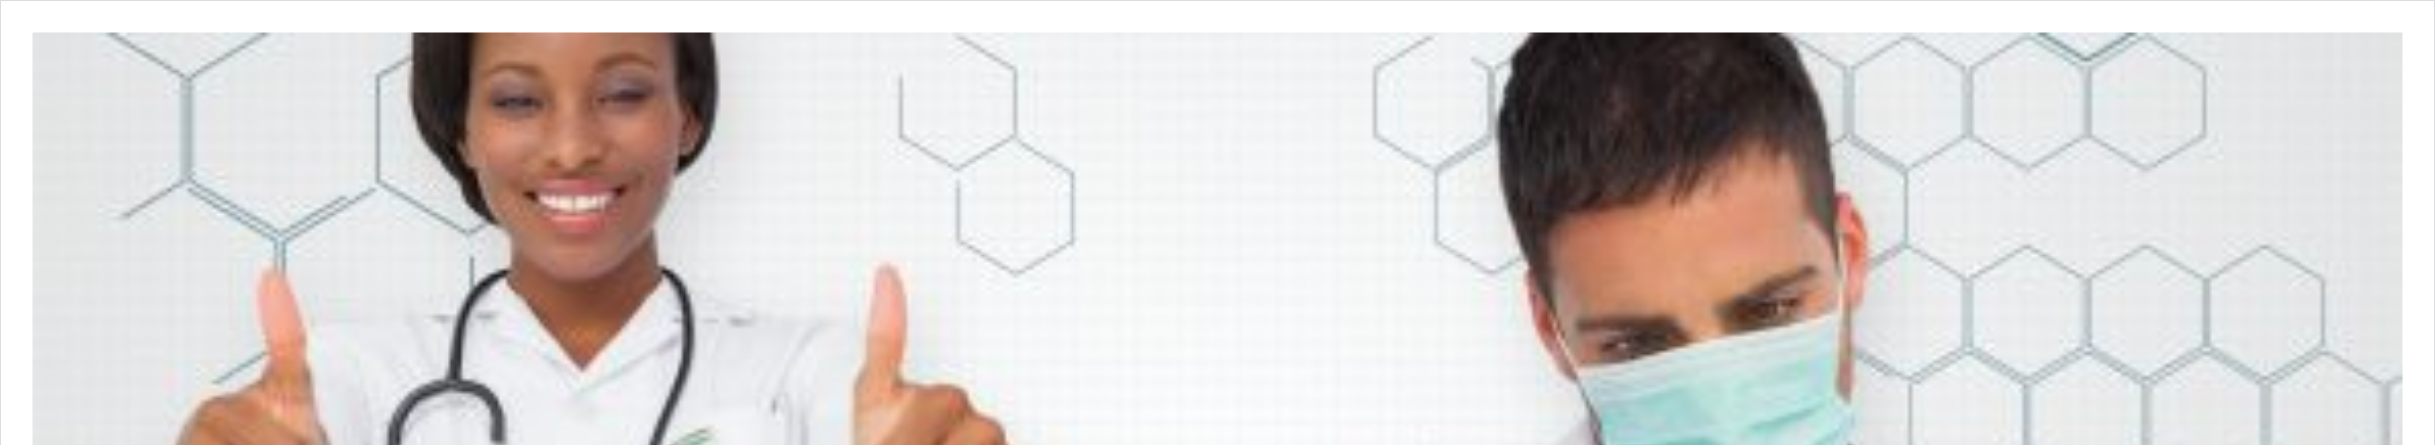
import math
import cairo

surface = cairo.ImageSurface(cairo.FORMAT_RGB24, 2435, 445)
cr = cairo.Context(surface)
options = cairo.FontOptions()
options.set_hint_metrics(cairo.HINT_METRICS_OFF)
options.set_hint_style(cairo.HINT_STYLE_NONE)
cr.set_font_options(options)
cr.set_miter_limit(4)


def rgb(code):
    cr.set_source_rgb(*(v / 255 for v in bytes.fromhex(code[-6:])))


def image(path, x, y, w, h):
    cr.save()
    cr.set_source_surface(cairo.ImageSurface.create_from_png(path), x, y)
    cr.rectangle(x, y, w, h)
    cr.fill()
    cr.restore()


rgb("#ffffff")
cr.paint()
cr.rectangle(0.5, 0.5, 2434, 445)
rgb("#dcdcde")
cr.set_line_width(1)
cr.stroke()
image("img/1.png", 32, 32, 2371, 413)
surface.write_to_png("page.png")
